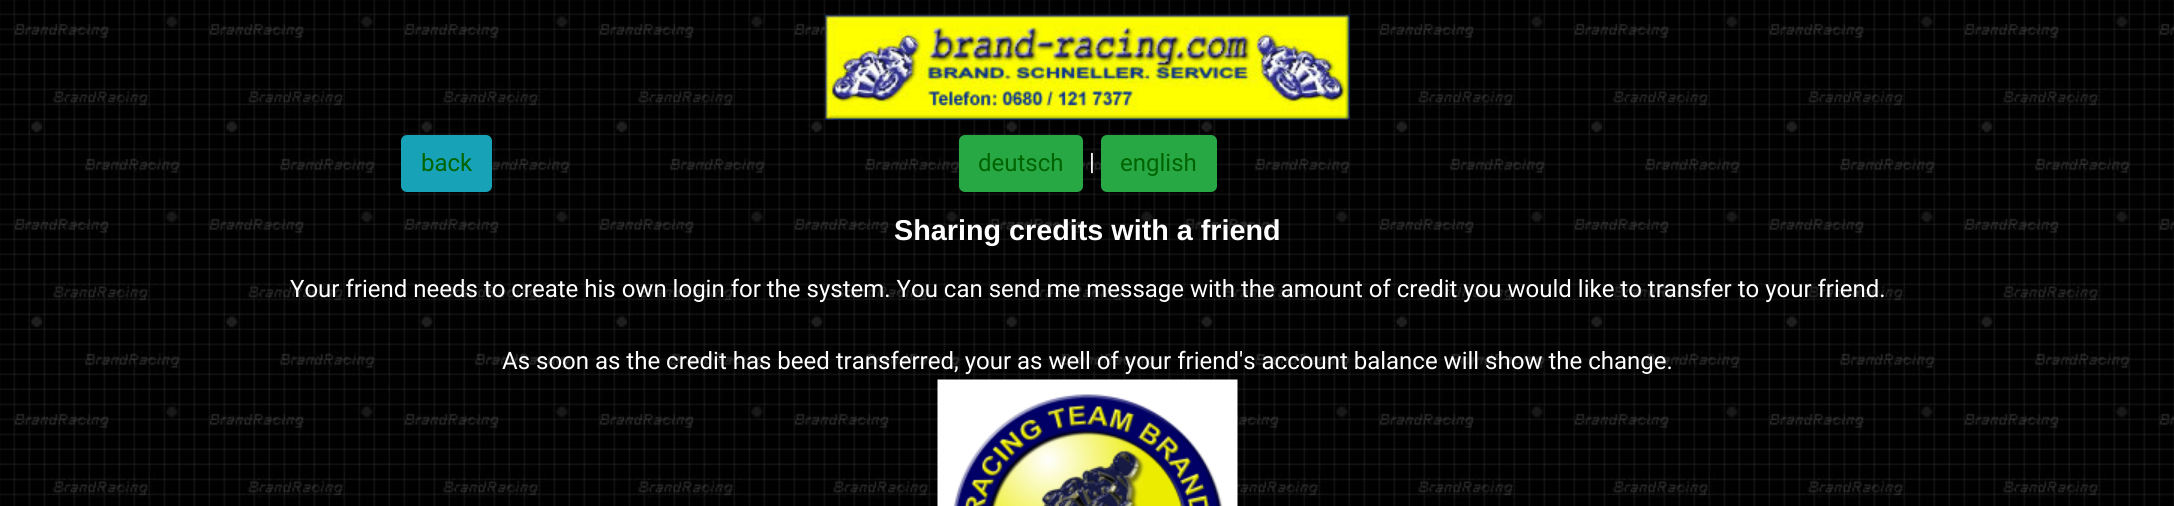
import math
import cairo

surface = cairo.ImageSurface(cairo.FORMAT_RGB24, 2174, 506)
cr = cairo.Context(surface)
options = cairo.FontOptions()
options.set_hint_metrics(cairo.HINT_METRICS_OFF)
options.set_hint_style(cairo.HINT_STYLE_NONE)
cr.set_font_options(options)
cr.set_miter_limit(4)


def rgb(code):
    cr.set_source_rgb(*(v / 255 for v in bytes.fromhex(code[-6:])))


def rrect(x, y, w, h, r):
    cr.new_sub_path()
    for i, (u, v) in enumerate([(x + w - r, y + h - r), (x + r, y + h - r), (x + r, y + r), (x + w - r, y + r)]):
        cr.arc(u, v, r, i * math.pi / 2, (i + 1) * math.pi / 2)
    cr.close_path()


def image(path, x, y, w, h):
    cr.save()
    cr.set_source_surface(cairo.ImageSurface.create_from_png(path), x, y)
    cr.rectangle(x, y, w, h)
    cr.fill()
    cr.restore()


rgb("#ffffff")
cr.paint()
image("img/1.png", 0, 0, 2174, 506)
image("img/2.png", 825, 15, 525, 105)
rgb("#17a2b8")
rrect(402, 136, 89, 55, 5)
cr.fill_preserve()
cr.stroke()
rgb("#28a745")
rrect(960, 136, 122, 55, 5)
cr.fill_preserve()
cr.stroke()
rrect(1102, 136, 114, 55, 5)
cr.fill_preserve()
cr.stroke()
image("img/3.png", 937, 379, 301, 127)
cr.select_font_face("Roboto")
cr.set_font_size(24)
rgb("#006400")
cr.move_to(421, 171)
cr.show_text("back")
cr.move_to(978, 171)
cr.show_text("deutsch")
rgb("#ffffff")
cr.move_to(1089, 170)
cr.show_text("|")
rgb("#006400")
cr.move_to(1120, 171)
cr.show_text("english")
cr.select_font_face("Liberation Sans", cairo.FONT_SLANT_NORMAL, cairo.FONT_WEIGHT_BOLD)
cr.set_font_size(28.75)
rgb("#ffffff")
cr.move_to(894, 240)
cr.show_text("Sharing credits with a friend")
cr.select_font_face("Roboto")
cr.set_font_size(24)
cr.move_to(290, 297)
cr.show_text("Your friend needs to create his own login for the system. You can send me message with the amount of credit you would like to transfer to your friend.")
cr.move_to(502, 369)
cr.show_text("As soon as the credit has beed transferred, your as well of your friend's account balance will show the change.")
surface.write_to_png("page.png")
